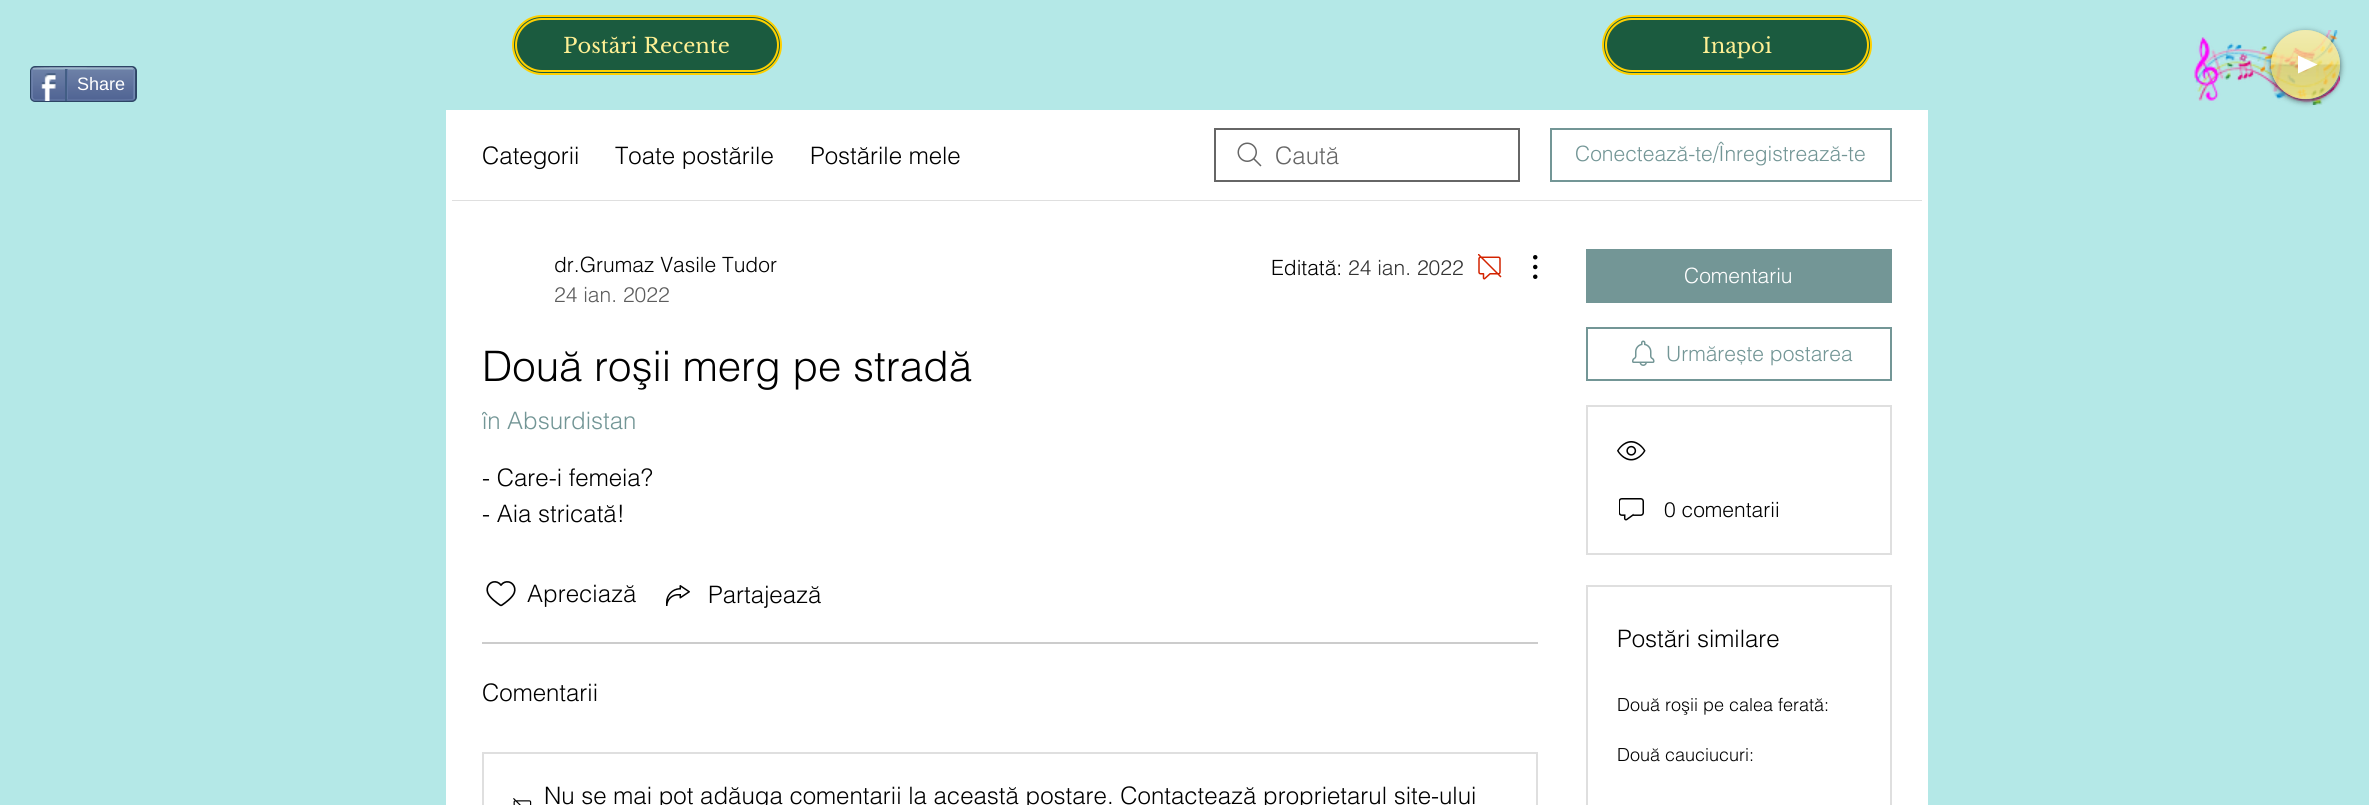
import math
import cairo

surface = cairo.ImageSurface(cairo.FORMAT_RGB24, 2369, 805)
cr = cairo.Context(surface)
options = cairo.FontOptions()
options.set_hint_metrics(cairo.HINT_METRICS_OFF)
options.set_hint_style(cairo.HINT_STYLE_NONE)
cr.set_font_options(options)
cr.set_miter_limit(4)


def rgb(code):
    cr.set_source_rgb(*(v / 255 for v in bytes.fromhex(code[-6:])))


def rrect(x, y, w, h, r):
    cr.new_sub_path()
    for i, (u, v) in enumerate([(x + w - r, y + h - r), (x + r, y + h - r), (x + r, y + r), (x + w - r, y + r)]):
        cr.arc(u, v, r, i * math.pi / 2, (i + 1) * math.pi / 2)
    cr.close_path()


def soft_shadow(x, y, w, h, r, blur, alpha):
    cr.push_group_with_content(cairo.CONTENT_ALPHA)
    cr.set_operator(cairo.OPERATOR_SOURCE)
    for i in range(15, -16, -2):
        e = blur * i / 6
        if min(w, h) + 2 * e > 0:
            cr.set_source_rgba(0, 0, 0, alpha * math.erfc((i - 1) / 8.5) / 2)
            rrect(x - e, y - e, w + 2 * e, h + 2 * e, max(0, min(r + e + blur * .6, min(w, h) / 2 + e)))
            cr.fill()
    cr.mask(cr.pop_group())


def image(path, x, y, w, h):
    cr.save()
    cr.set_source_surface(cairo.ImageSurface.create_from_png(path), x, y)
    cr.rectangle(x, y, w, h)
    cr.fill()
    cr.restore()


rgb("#b4e8e7")
cr.paint()
rrect(31, 67, 105, 34, 4)
rgb("#2d4565")
cr.stroke()
image("img/1.png", 31, 68, 105, 33)
cr.new_path()
cr.move_to(33, 69)
cr.line_to(33.5, 68.5)
cr.curve_to(35, 67.5, 107.5, 68, 116, 68)
cr.line_to(132, 68)
cr.line_to(133.5, 69)
rgb("#9aabc6")
cr.set_line_width(1.5)
cr.stroke()
cr.new_path()
cr.move_to(133.5, 69)
cr.curve_to(134, 69.5, 134, 70, 134, 70.5)
cr.line_to(134, 97.5)
cr.curve_to(134, 98, 134, 98.5, 133.5, 99)
rgb("#6f83ad")
cr.stroke()
cr.new_path()
cr.move_to(133.5, 99)
cr.line_to(133, 99.5)
cr.curve_to(131.5, 100.5, 59, 100, 51, 100)
cr.line_to(34.5, 100)
cr.line_to(33, 99)
rgb("#6176a3")
cr.stroke()
cr.new_path()
cr.move_to(33, 99)
cr.curve_to(32.5, 98.5, 32, 98, 32, 97.5)
cr.line_to(32, 70.5)
cr.curve_to(32, 70, 32.5, 69.5, 33, 69)
rgb("#6f83ad")
cr.stroke()
image("img/2.png", 40, 73, 16, 28)
rgb("#425e85")
cr.rectangle(65, 69, 2, 32)
cr.fill()
rgb("#6176a3")
cr.rectangle(67, 69, 1, 30)
cr.fill()
rgb("#1b5b3f")
rrect(513, 16, 268, 58, 29)
cr.fill_preserve()
rgb("#ffd000")
cr.set_line_width(2)
cr.stroke()
rrect(516, 19, 262, 52, 26)
cr.stroke()
rgb("#1b5b3f")
rrect(1603, 16, 268, 58, 29)
cr.fill_preserve()
rgb("#ffd000")
cr.stroke()
rrect(1606, 19, 262, 52, 26)
cr.stroke()
rgb("#ffffff")
cr.rectangle(446, 110, 1482, 695)
cr.fill()
rgb("#dfdfdf")
cr.rectangle(452, 200, 1470, 1)
cr.fill()
image("img/3.png", 1237, 142, 25, 25)
cr.rectangle(1215, 129, 304, 52)
rgb("#666666")
cr.stroke()
cr.rectangle(1551, 129, 340, 52)
rgb("#739696")
cr.stroke()
image("img/4.png", 1478, 254, 24, 26)
image("img/5.png", 1533, 255, 5, 24)
image("img/6.png", 486, 581, 30, 26)
image("img/7.png", 666, 585, 24, 21)
rgb("#cccccc")
cr.rectangle(482, 642, 1056, 2)
cr.fill()
cr.rectangle(483, 753, 1054, 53)
rgb("#dfdfdf")
cr.stroke()
image("img/8.png", 513, 798, 19, 7)
rgb("#739696")
cr.rectangle(1586, 249, 306, 54)
cr.fill()
cr.rectangle(1587, 328, 304, 52)
cr.stroke()
image("img/9.png", 1632, 340, 23, 26)
cr.rectangle(1587, 406, 304, 148)
rgb("#dfdfdf")
cr.stroke()
image("img/10.png", 1617, 441, 29, 20)
image("img/11.png", 1619, 498, 25, 23)
cr.rectangle(1587, 586, 304, 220)
cr.stroke()
image("img/13.png", 2194, 30, 146, 75)
cr.save()
cr.set_fill_rule(cairo.FILL_RULE_EVEN_ODD)
cr.new_path()
cr.move_to(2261, 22)
cr.line_to(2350, 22)
cr.line_to(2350, 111)
cr.line_to(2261, 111)
cr.close_path()
cr.move_to(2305.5, 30)
cr.curve_to(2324.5, 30, 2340, 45.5, 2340, 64.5)
cr.curve_to(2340, 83.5, 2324.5, 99, 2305.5, 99)
cr.curve_to(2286.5, 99, 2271, 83.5, 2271, 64.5)
cr.curve_to(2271, 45.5, 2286.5, 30, 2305.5, 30)
cr.close_path()
cr.clip()
rgb("#000000")
soft_shadow(2271, 32, 69, 69, 34.5, 3, 0.6)
cr.restore()
cr.set_source_rgba(1, 0.871, 0.373, 0.7)
cr.arc(2305.5, 64.5, 34.5, 0, 2 * math.pi)
cr.fill()
image("img/12.png", 2271, 30, 69, 65)
rgb("#ffffff")
cr.new_path()
cr.move_to(2298, 73.5)
cr.line_to(2298, 55.5)
cr.line_to(2317.5, 64.5)
cr.close_path()
cr.fill()
cr.select_font_face("Liberation Sans")
cr.set_font_size(18)
cr.move_to(77, 90)
cr.show_text("Share")
cr.select_font_face("Libre Baskerville")
cr.set_font_size(21)
rgb("#fff094")
cr.move_to(563, 53)
cr.show_text("Postări Recente")
cr.move_to(1702, 53)
cr.show_text("Inapoi")
cr.select_font_face("helvetica Light")
cr.set_font_size(24)
rgb("#000000")
for x, y, s in [
    (482, 164, "Categorii"),
    (615, 164, "Toate postările"),
    (810, 164, "Postările mele"),
]:
    cr.move_to(x, y)
    cr.show_text(s)
rgb("#666666")
cr.move_to(1275, 164)
cr.show_text("Caută")
cr.set_font_size(21)
rgb("#739696")
cr.move_to(1575, 161)
cr.show_text("Conectează-te/Înregistrează-te")
rgb("#000000")
cr.move_to(554, 272)
cr.show_text("dr.Grumaz Vasile Tudor")
rgb("#5c5c5c")
cr.move_to(554, 302)
cr.show_text("24 ian. 2022")
rgb("#000000")
cr.move_to(1271, 275)
cr.show_text("Editată:")
rgb("#333333")
cr.move_to(1348, 275)
cr.show_text("24 ian. 2022")
cr.set_font_size(42)
rgb("#000000")
cr.move_to(482, 381)
cr.show_text("Două roşii merg pe stradă")
cr.save()
cr.rectangle(482, 399, 154, 42)
cr.clip()
cr.set_font_size(24)
rgb("#739696")
cr.move_to(482, 429)
cr.show_text("în")
cr.restore()
cr.set_font_size(24)
rgb("#739696")
cr.move_to(507, 429)
cr.show_text("Absurdistan")
rgb("#000000")
for x, y, s in [
    (482, 486, "- Care-i femeia?"),
    (482, 522, "- Aia stricată!"),
    (527, 602, "Apreciază"),
    (708, 603, "Partajează"),
    (482, 701, "Comentarii"),
    (544, 804, "Nu se mai pot adăuga comentarii la această postare. Contactează proprietarul site-ului"),
]:
    cr.move_to(x, y)
    cr.show_text(s)
cr.set_font_size(21)
rgb("#ffffff")
cr.move_to(1684, 283)
cr.show_text("Comentariu")
rgb("#739696")
cr.move_to(1666, 361)
cr.show_text("Urmărește postarea")
rgb("#000000")
cr.move_to(1664, 517)
cr.show_text("0 comentarii")
cr.set_font_size(24)
cr.move_to(1617, 647)
cr.show_text("Postări similare")
cr.set_font_size(18)
cr.move_to(1617, 711)
cr.show_text("Două roşii pe calea ferată:")
cr.move_to(1617, 761)
cr.show_text("Două cauciucuri:")
surface.write_to_png("page.png")
